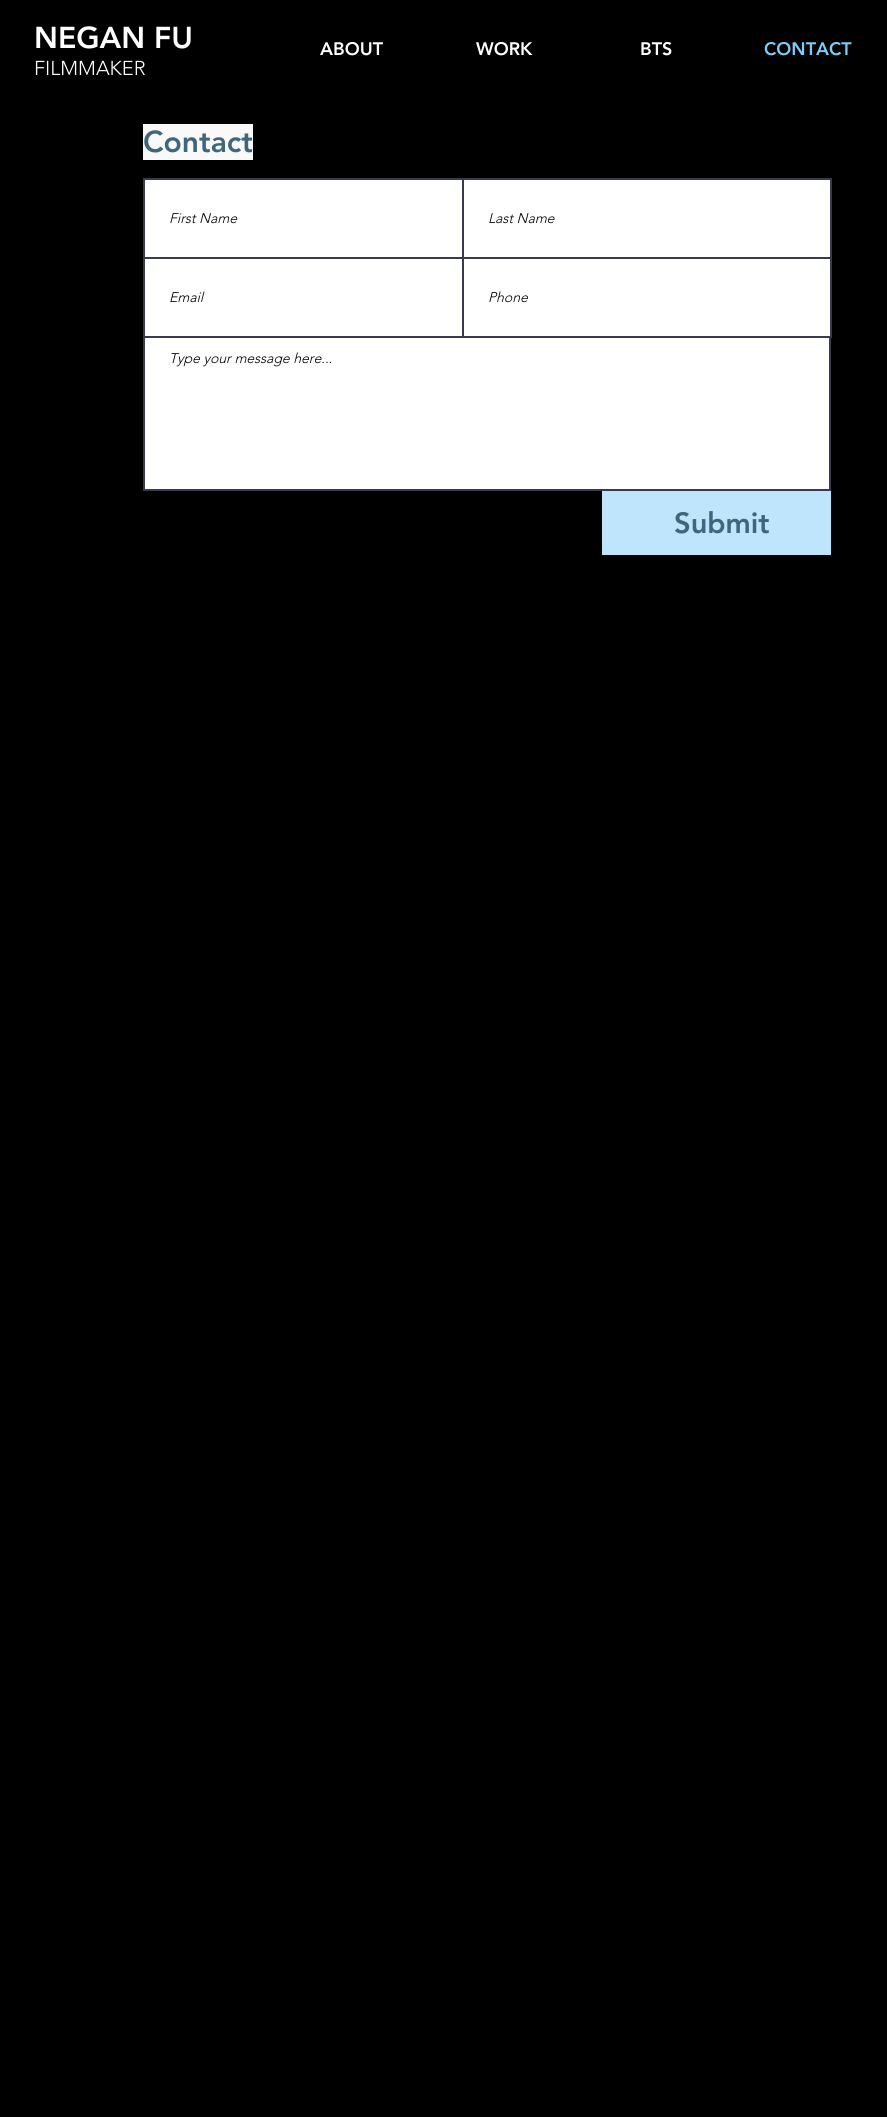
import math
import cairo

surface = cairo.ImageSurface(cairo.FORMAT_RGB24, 887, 2117)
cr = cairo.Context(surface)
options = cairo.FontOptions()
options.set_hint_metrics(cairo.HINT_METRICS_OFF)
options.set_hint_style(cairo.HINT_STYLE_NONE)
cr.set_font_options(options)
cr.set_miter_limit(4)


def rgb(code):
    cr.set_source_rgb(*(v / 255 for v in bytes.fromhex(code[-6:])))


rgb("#000000")
cr.paint()
rgb("#f9f9f9")
cr.rectangle(143, 124, 110, 36)
cr.fill()
rgb("#ffffff")
cr.rectangle(144, 179, 319, 79)
cr.fill_preserve()
rgb("#373b4d")
cr.stroke()
rgb("#ffffff")
cr.rectangle(463, 179, 368, 79)
cr.fill_preserve()
rgb("#373b4d")
cr.stroke()
rgb("#ffffff")
cr.rectangle(144, 258, 319, 79)
cr.fill_preserve()
rgb("#373b4d")
cr.stroke()
rgb("#ffffff")
cr.rectangle(463, 258, 368, 79)
cr.fill_preserve()
rgb("#373b4d")
cr.stroke()
rgb("#ffffff")
cr.rectangle(144, 337, 686, 153)
cr.fill_preserve()
rgb("#373b4d")
cr.stroke()
rgb("#bee5fb")
cr.rectangle(602, 491, 229, 64)
cr.fill()
cr.select_font_face("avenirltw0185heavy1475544 Black")
cr.set_font_size(30)
rgb("#ffffff")
cr.move_to(34, 48)
cr.show_text("NEGAN FU")
cr.select_font_face("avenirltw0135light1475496 Light")
cr.set_font_size(20)
cr.move_to(34, 75)
cr.show_text("FILMMAKER")
cr.select_font_face("avenirltw0185heavy1475544 Black")
cr.set_font_size(18)
for x, y, s in [
    (320, 55, "ABOUT"),
    (476, 55, "WORK"),
    (640, 55, "BTS"),
]:
    cr.move_to(x, y)
    cr.show_text(s)
rgb("#7fccf7")
cr.move_to(764, 55)
cr.show_text("CONTACT")
cr.set_font_size(30)
rgb("#40667c")
cr.move_to(143, 152)
cr.show_text("Contact")
cr.select_font_face("avenirltw0135light1475496 Light", cairo.FONT_SLANT_ITALIC)
cr.set_font_size(14)
rgb("#000000")
for x, y, s in [
    (169, 223, "First Name"),
    (488, 223, "Last Name"),
    (169, 302, "Email"),
    (488, 302, "Phone"),
    (169, 363, "Type your message here..."),
]:
    cr.move_to(x, y)
    cr.show_text(s)
cr.select_font_face("avenirltw0185heavy1475544 Black")
cr.set_font_size(29)
rgb("#40667c")
cr.move_to(674, 533)
cr.show_text("Submit")
surface.write_to_png("page.png")
